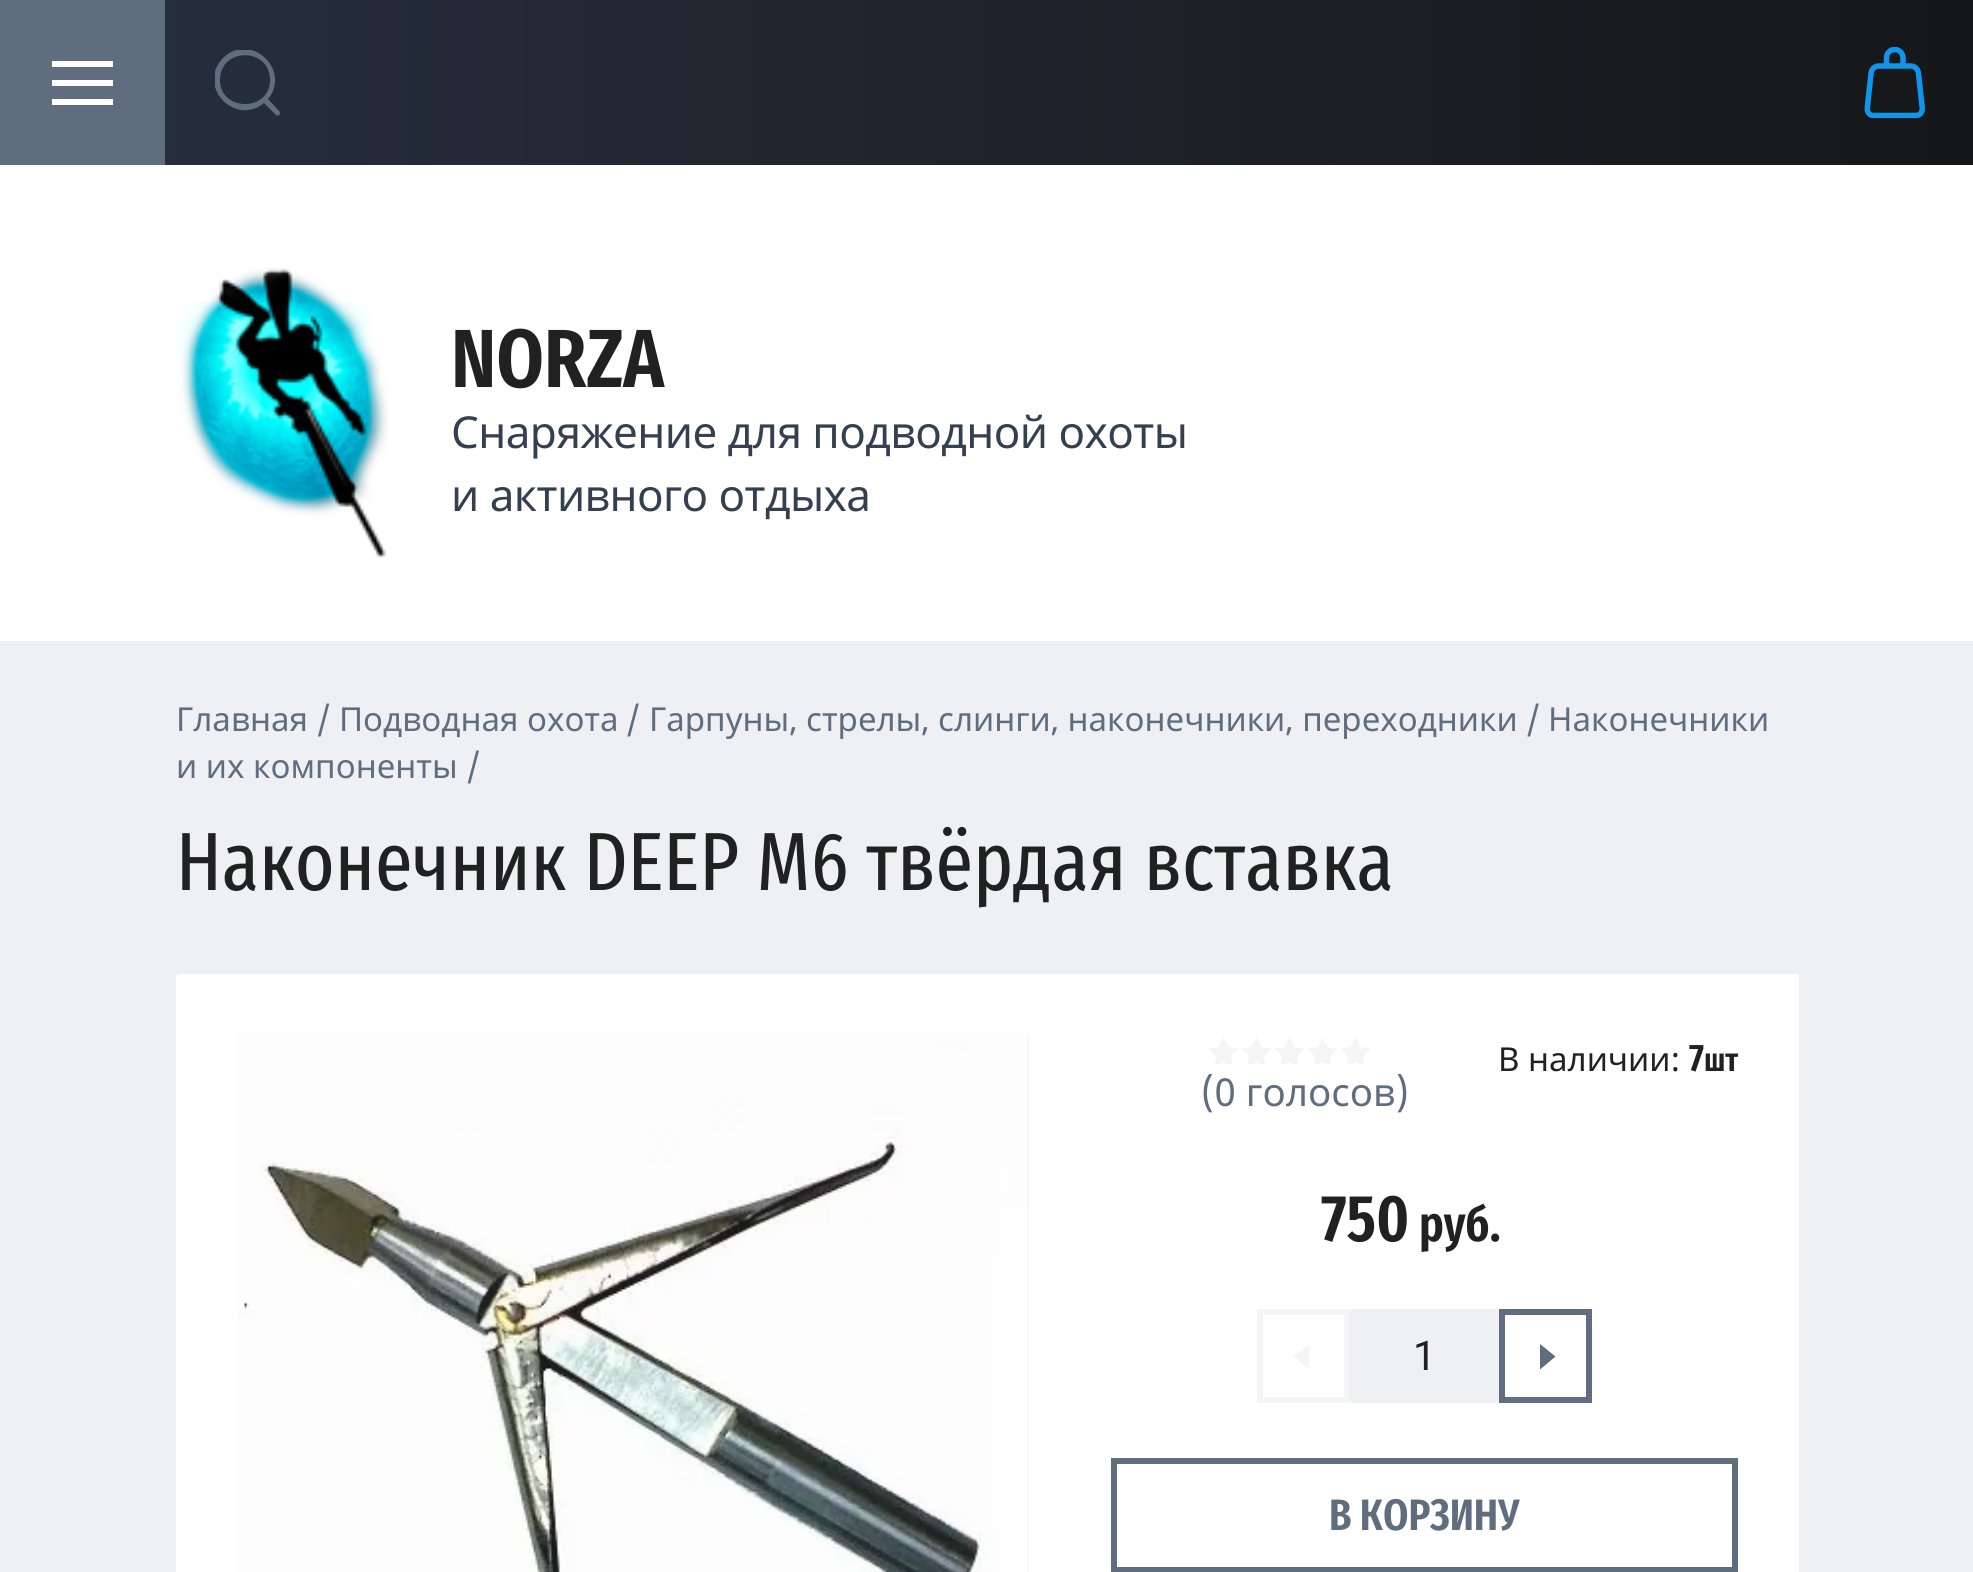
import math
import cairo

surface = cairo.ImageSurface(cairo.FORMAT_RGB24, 1973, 1572)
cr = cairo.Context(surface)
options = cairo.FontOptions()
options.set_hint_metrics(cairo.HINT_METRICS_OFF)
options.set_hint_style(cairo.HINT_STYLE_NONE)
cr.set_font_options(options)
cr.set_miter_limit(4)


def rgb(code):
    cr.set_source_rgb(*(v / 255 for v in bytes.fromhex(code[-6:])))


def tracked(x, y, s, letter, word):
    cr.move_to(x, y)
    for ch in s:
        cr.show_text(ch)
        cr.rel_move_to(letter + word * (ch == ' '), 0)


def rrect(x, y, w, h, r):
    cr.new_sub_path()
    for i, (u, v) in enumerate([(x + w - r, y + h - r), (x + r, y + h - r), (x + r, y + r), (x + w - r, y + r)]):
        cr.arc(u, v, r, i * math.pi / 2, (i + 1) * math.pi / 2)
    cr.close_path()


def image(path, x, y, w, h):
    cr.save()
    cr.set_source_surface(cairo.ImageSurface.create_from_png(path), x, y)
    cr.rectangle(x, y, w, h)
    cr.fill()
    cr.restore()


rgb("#ffffff")
cr.paint()
gradient = cairo.LinearGradient(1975, 83, 0, 82)
gradient.add_color_stop_rgba(0, 0.086, 0.09, 0.094, 1)
gradient.add_color_stop_rgba(1, 0.153, 0.184, 0.247, 1)
cr.set_source(gradient)
cr.rectangle(165, 0, 1808, 165)
cr.fill()
for x, y, w, h, color in [
    (0, 0, 165, 165, "#5f6d7f"),
    (52, 80, 61, 6, "#ffffff"),
    (52, 61, 61, 6, "#ffffff"),
    (52, 99, 61, 6, "#ffffff"),
]:
    rgb(color)
    cr.rectangle(x, y, w, h)
    cr.fill()
cr.save()
cr.rectangle(215, 50, 66, 66)
cr.clip()
rgb("#5f6d7f")
cr.new_path()
cr.move_to(276, 115)
cr.curve_to(278, 117, 281, 114, 280, 112)
cr.line_to(268, 99)
cr.curve_to(292, 70, 250, 31, 223, 58)
cr.curve_to(196, 86, 235, 127, 264, 103)
cr.close_path()
cr.move_to(220, 80)
cr.curve_to(220, 47, 270, 47, 270, 80)
cr.curve_to(270, 112, 220, 112, 220, 80)
cr.close_path()
cr.fill()
cr.restore()
image("img/1.png", 1864, 47, 61, 71)
image("img/2.png", 176, 268, 213, 291)
rgb("#eef0f3")
cr.rectangle(0, 641, 1973, 931)
cr.fill()
rgb("#ffffff")
rrect(176, 974, 1623, 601, 3)
cr.fill()
rgb("#f4f4f4")
cr.rectangle(237, 1034, 792, 538)
cr.fill()
image("img/3.png", 237, 1034, 791, 538)
image("img/4.png", 1209, 1036, 161, 28)
cr.rectangle(1260, 1312, 87, 88)
rgb("#f5f5f6")
cr.set_line_width(6)
cr.stroke()
cr.new_path()
cr.move_to(1293.5, 1356.5)
cr.line_to(1309, 1369.5)
cr.line_to(1309, 1344)
cr.close_path()
cr.fill()
rgb("#eef0f3")
rrect(1351.5, 1310.5, 146, 91, 1.5)
cr.fill_preserve()
cr.set_line_width(3)
cr.stroke()
cr.rectangle(1502, 1312, 87, 88)
rgb("#5f6d7f")
cr.set_line_width(6)
cr.stroke()
cr.new_path()
cr.move_to(1555.5, 1356.5)
cr.line_to(1540, 1344)
cr.line_to(1540, 1369.5)
cr.close_path()
cr.fill()
cr.rectangle(1114, 1461, 621, 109)
cr.stroke()
cr.select_font_face("Fira Sans Extra Condensed SemiBold")
cr.set_font_size(82.5)
rgb("#212121")
cr.move_to(451, 387)
cr.show_text("NORZA")
cr.select_font_face("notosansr")
cr.set_font_size(44)
rgb("#344050")
tracked(451, 448, "Снаряжение для подводной охоты", -0.55, 0)
tracked(451, 511, "и активного отдыха", -0.55, 0)
cr.set_font_size(33)
rgb("#5f6d7f")
for x, y, s in [
    (176, 731, "Главная /"),
    (339, 731, "Подводная охота"),
    (626, 731, "/"),
    (649, 731, "Гарпуны, стрелы, слинги, наконечники, переходники"),
    (1526, 731, "/"),
    (1548, 731, "Наконечники"),
    (176, 778, "и их компоненты /"),
]:
    cr.move_to(x, y)
    cr.show_text(s)
cr.select_font_face("Fira Sans Extra Condensed")
cr.set_font_size(82.5)
rgb("#212121")
cr.move_to(176, 890)
cr.show_text("Наконечник DEEP М6 твёрдая вставка")
cr.select_font_face("notosansr")
cr.set_font_size(33)
cr.move_to(1498, 1071)
cr.show_text("В наличии:")
cr.select_font_face("Fira Sans Extra Condensed SemiBold")
cr.set_font_size(38.5)
cr.move_to(1689, 1071)
cr.show_text("7")
cr.set_font_size(33)
cr.move_to(1704, 1071)
cr.show_text("шт")
cr.select_font_face("notosansr")
cr.set_font_size(38.5)
rgb("#5f6d7f")
cr.move_to(1201, 1106)
cr.show_text("(0 голосов)")
cr.select_font_face("Fira Sans Extra Condensed SemiBold")
cr.set_font_size(66)
rgb("#212121")
cr.move_to(1321, 1241)
cr.show_text("750")
cr.set_font_size(50)
cr.move_to(1419, 1241)
cr.show_text("руб.")
cr.select_font_face("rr")
cr.set_font_size(41)
cr.move_to(1413, 1370)
cr.show_text("1")
cr.select_font_face("Fira Sans Extra Condensed SemiBold")
cr.set_font_size(44)
rgb("#5f6d7f")
cr.move_to(1329, 1530)
cr.show_text("В КОРЗИНУ")
surface.write_to_png("page.png")
